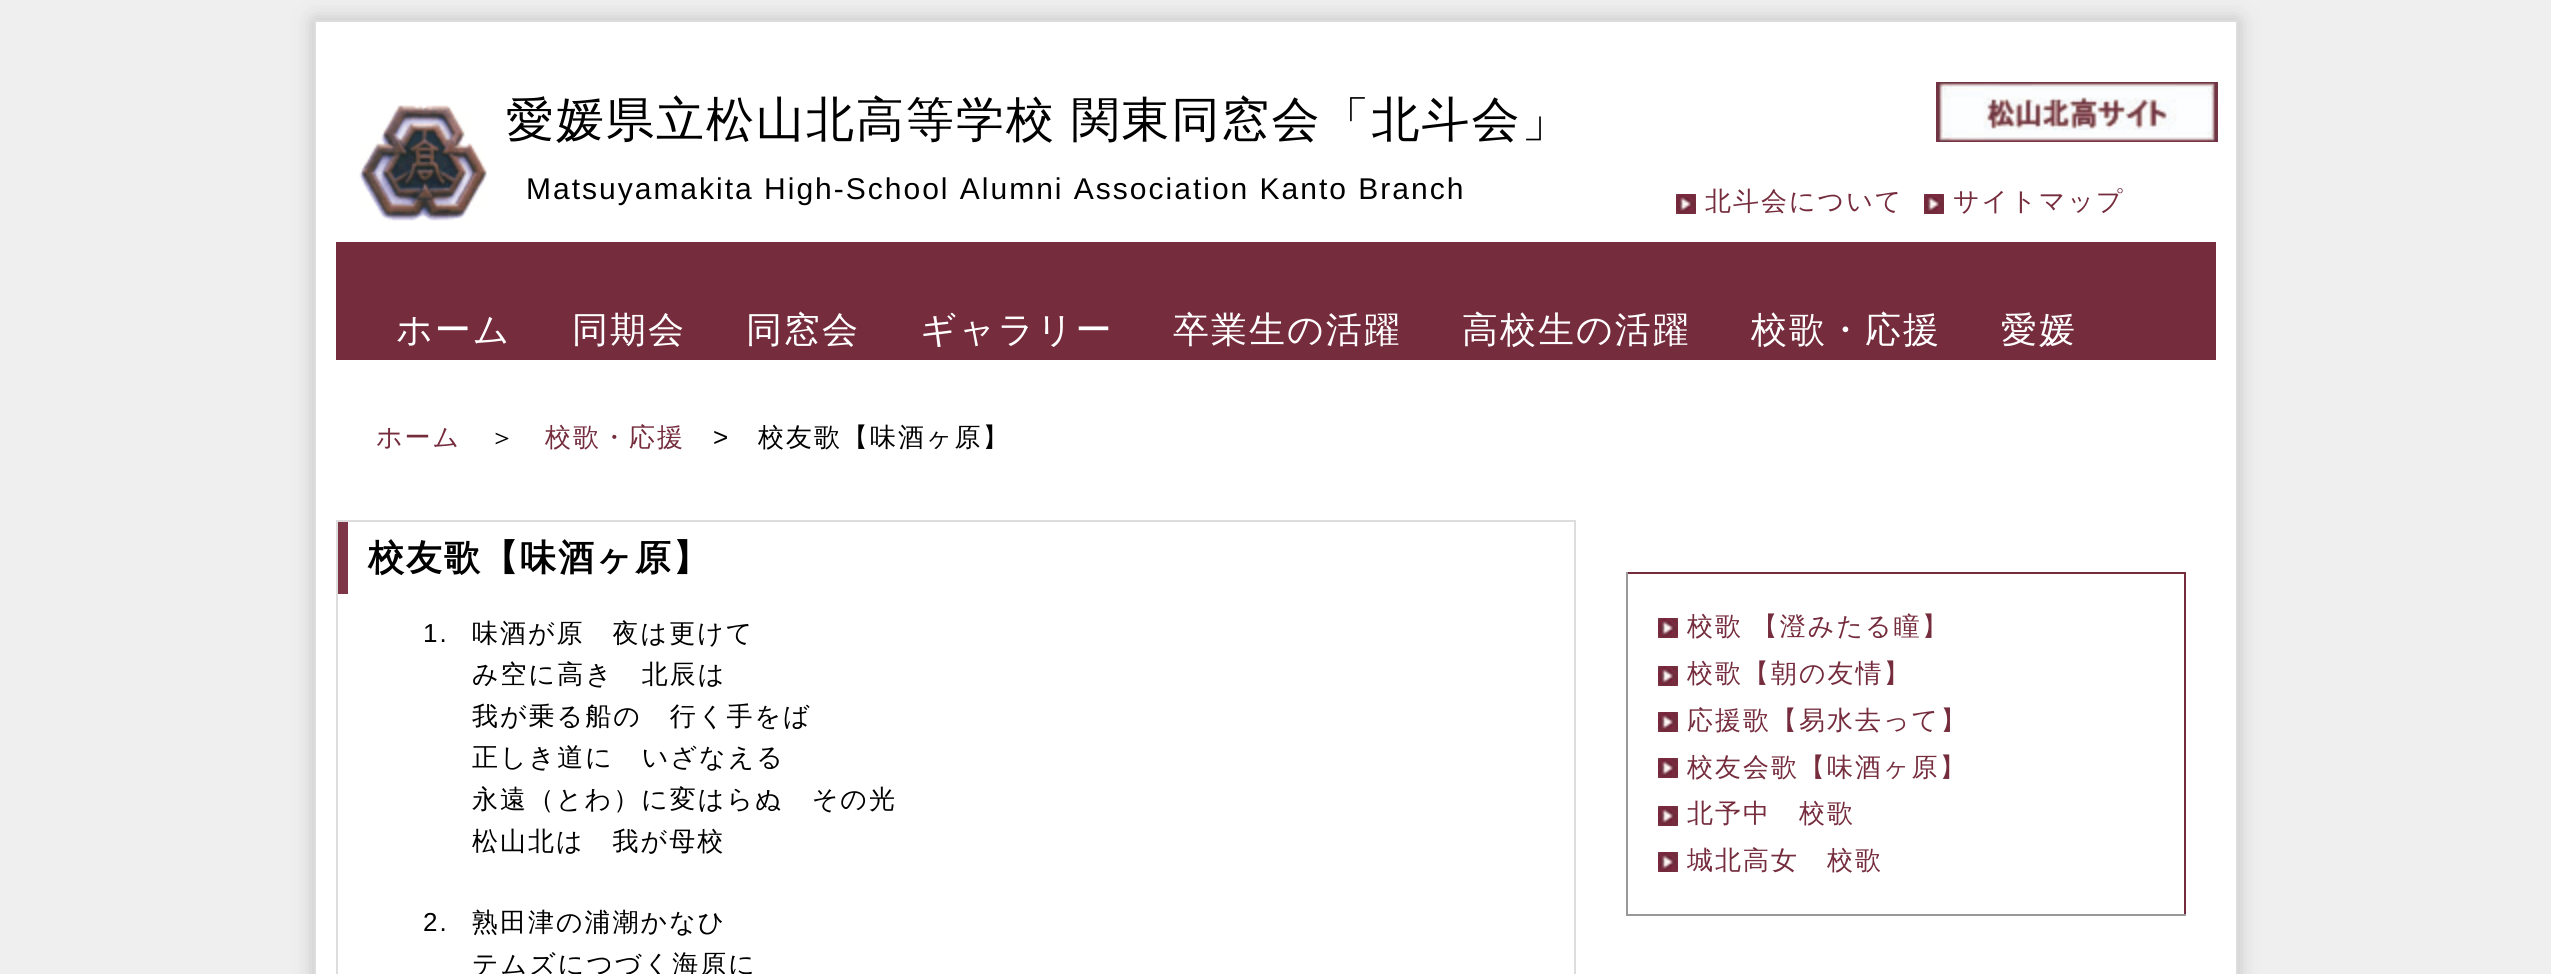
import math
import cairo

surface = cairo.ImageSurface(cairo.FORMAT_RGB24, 2551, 974)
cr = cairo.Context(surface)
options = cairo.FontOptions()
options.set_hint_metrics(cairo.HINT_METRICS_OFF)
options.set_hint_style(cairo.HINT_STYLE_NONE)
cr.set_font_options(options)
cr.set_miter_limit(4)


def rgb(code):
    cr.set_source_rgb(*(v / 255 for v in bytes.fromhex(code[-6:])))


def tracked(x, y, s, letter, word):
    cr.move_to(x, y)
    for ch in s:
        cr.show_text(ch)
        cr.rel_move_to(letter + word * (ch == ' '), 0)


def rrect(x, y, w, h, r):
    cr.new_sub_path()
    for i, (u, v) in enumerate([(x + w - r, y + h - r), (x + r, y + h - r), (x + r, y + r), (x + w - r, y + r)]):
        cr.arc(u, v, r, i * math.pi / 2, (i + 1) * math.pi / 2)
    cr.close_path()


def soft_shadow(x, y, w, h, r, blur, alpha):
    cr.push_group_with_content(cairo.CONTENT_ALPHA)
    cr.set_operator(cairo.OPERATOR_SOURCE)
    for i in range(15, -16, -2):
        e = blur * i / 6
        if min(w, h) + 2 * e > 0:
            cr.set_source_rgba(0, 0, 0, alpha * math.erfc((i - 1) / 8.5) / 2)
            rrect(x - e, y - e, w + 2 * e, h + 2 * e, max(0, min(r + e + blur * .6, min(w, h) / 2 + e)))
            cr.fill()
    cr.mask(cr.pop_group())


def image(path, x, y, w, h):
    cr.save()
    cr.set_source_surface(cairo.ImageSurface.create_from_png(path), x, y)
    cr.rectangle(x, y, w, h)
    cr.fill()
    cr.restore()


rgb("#efefef")
cr.paint()
rgb("#bfbfbf")
soft_shadow(314, 20, 1924, 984, 0, 10, 1)
rgb("#ffffff")
cr.rectangle(315, 21, 1922, 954)
cr.fill_preserve()
rgb("#dddddd")
cr.stroke()
image("img/1.png", 359, 105, 128, 116)
image("img/2.png", 1936, 82, 282, 60)
image("img/3.png", 1676, 194, 20, 20)
image("img/3.png", 1924, 194, 20, 20)
rgb("#752c3d")
cr.rectangle(336, 242, 1880, 118)
cr.fill()
cr.rectangle(337, 521, 1238, 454)
rgb("#dddddd")
cr.stroke()
for x, y, w, h, color in [
    (338, 522, 10, 72, "#7e3546"),
    (1626, 572, 560, 2, "#752c3d"),
    (2184, 572, 2, 344, "#752c3d"),
    (1626, 914, 560, 2, "#999999"),
    (1626, 572, 2, 344, "#999999"),
]:
    rgb(color)
    cr.rectangle(x, y, w, h)
    cr.fill()
image("img/3.png", 1658, 618, 20, 20)
image("img/3.png", 1658, 666, 20, 20)
image("img/3.png", 1658, 712, 20, 20)
image("img/3.png", 1658, 758, 20, 20)
image("img/3.png", 1658, 806, 20, 20)
image("img/3.png", 1658, 852, 20, 20)
cr.select_font_face("WenQuanYi Zen Hei Medium")
cr.set_font_size(48)
rgb("#000000")
tracked(506, 136, "愛媛県立松山北高等学校 関東同窓会「北斗会」", 2, -1)
cr.select_font_face("Liberation Sans")
cr.set_font_size(30)
tracked(526, 199, "Matsuyamakita High-School Alumni Association Kanto Branch", 2, 0)
cr.select_font_face("WenQuanYi Zen Hei Medium")
cr.set_font_size(26)
rgb("#752c3d")
tracked(1705, 210, "北斗会について", 2, 0)
tracked(1953, 210, "サイトマップ", 2, 0)
cr.set_font_size(36)
rgb("#ffffff")
for x, y, s in [
    (396, 342, "ホーム"),
    (572, 342, "同期会"),
    (746, 342, "同窓会"),
    (920, 342, "ギャラリー"),
    (1173, 342, "卒業生の活躍"),
    (1462, 342, "高校生の活躍"),
    (1751, 342, "校歌・応援"),
    (2001, 342, "愛媛"),
]:
    tracked(x, y, s, 2, 0)
cr.set_font_size(26)
rgb("#752c3d")
tracked(376, 446, "ホーム", 2, 0)
rgb("#000000")
tracked(489, 446, "＞", 2, 0)
rgb("#752c3d")
tracked(545, 446, "校歌・応援", 2, 0)
cr.select_font_face("Liberation Sans")
rgb("#000000")
tracked(713, 446, ">", 2, 0)
cr.select_font_face("WenQuanYi Zen Hei Medium")
tracked(758, 446, "校友歌【味酒ヶ原】", 2, 0)
cr.select_font_face("WenQuanYi Zen Hei", cairo.FONT_SLANT_NORMAL, cairo.FONT_WEIGHT_BOLD)
cr.set_font_size(36)
tracked(368, 570, "校友歌【味酒ヶ原】", 2, 0)
cr.select_font_face("Liberation Sans")
cr.set_font_size(26)
tracked(423, 642, "1.", 2, 0)
cr.select_font_face("WenQuanYi Zen Hei Medium")
for x, y, s in [
    (472, 642, "味酒が原　夜は更けて"),
    (472, 683, "み空に高き　北辰は"),
    (472, 725, "我が乗る船の　行く手をば"),
    (472, 766, "正しき道に　いざなえる"),
    (472, 808, "永遠（とわ）に変はらぬ　その光"),
    (472, 850, "松山北は　我が母校"),
]:
    tracked(x, y, s, 2, 0)
cr.select_font_face("Liberation Sans")
tracked(423, 931, "2.", 2, 0)
cr.select_font_face("WenQuanYi Zen Hei Medium")
tracked(472, 931, "熟田津の浦潮かなひ", 2, 0)
tracked(472, 973, "テムズにつづく海原に", 2, 0)
rgb("#752c3d")
tracked(1687, 635, "校歌 【澄みたる瞳】", 2, -1)
for x, y, s in [
    (1687, 682, "校歌【朝の友情】"),
    (1687, 729, "応援歌【易水去って】"),
    (1687, 776, "校友会歌【味酒ヶ原】"),
    (1687, 822, "北予中　校歌"),
    (1687, 869, "城北高女　校歌"),
]:
    tracked(x, y, s, 2, 0)
surface.write_to_png("page.png")
